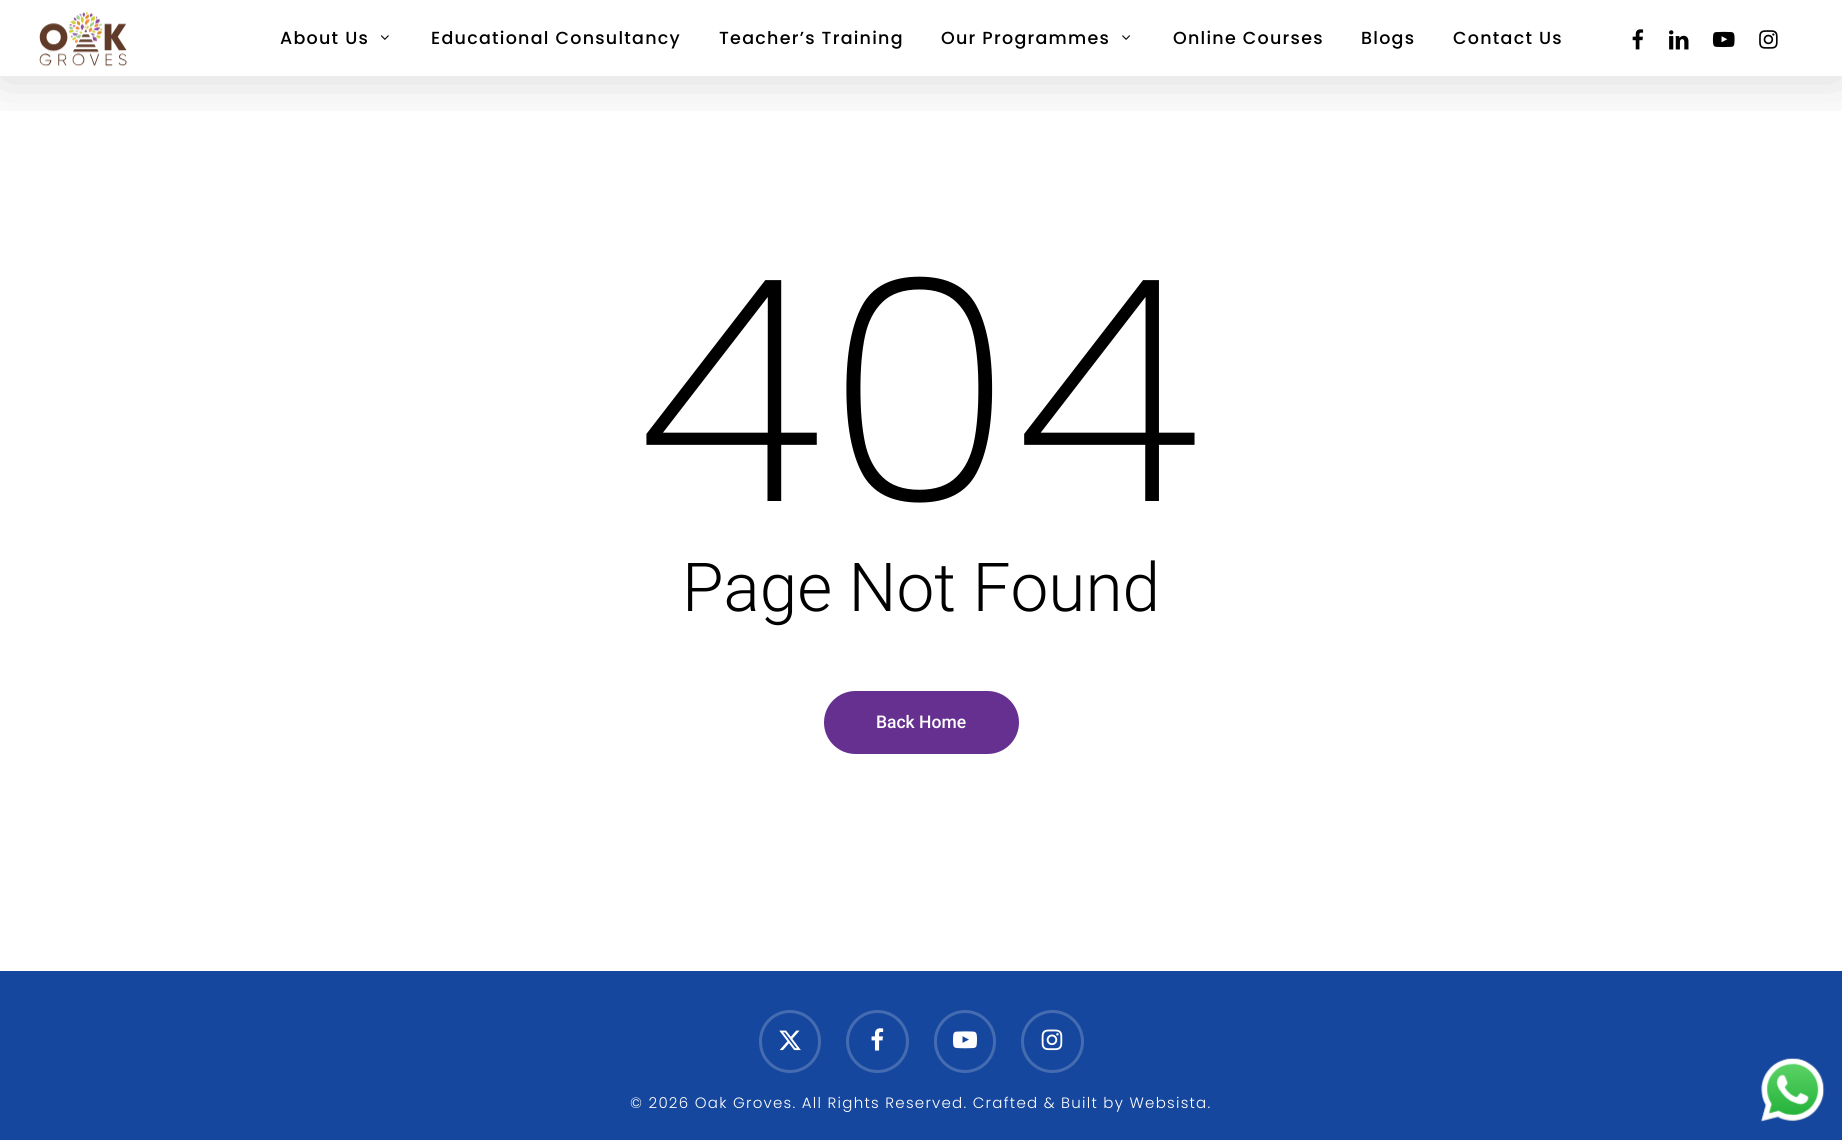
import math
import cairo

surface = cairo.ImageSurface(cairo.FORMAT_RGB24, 1842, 1140)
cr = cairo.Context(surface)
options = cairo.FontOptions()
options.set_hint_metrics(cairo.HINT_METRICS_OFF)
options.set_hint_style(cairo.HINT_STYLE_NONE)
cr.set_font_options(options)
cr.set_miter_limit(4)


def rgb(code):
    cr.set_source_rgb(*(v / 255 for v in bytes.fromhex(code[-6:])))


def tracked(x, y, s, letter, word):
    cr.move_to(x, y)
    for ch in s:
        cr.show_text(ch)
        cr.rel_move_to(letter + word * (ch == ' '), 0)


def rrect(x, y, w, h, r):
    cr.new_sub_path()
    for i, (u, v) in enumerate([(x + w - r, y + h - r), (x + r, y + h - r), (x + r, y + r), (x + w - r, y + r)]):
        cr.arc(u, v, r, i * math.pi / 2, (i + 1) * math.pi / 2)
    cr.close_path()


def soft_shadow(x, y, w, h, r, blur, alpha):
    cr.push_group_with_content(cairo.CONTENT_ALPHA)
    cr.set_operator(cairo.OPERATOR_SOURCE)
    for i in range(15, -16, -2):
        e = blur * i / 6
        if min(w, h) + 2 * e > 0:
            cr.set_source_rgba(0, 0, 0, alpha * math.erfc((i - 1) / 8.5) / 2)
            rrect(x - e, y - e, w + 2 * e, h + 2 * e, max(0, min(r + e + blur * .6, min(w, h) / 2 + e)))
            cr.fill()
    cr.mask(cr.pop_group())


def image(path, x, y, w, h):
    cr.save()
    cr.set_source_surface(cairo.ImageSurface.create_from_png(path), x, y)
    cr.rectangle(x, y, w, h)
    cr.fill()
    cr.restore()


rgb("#ffffff")
cr.paint()
cr.save()
cr.rectangle(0, 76, 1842, 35)
cr.clip()
rgb("#000000")
soft_shadow(0, 4, 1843, 76, 0, 28, 0.15)
cr.restore()
image("img/1.png", 39, 11, 88, 56)
image("img/2.png", 380, 35, 9, 5)
image("img/3.png", 1122, 35, 8, 5)
image("img/4.png", 1632, 29, 12, 21)
image("img/5.png", 1669, 30, 20, 20)
image("img/6.png", 1712, 31, 23, 17)
image("img/7.png", 1759, 30, 19, 19)
rgb("#65308f")
rrect(824, 691, 195, 63, 31.5)
cr.fill()
rgb("#16479e")
cr.rectangle(0, 971, 1842, 169)
cr.fill()
image("img/8.png", 779, 1030, 22, 21)
rrect(760.5, 1011.5, 59, 60, 29.5)
rgb("#456cb1")
cr.set_line_width(3)
cr.stroke()
image("img/9.png", 871, 1028, 13, 23)
cr.arc(877.5, 1041.5, 30, 0, 2 * math.pi)
cr.stroke()
image("img/10.png", 953, 1031, 24, 18)
rrect(935.5, 1011.5, 59, 60, 29.5)
cr.stroke()
image("img/11.png", 1041, 1029, 22, 22)
cr.arc(1052.5, 1041.5, 30, 0, 2 * math.pi)
cr.stroke()
image("img/12.png", 1761, 1058, 64, 64)
cr.select_font_face("Poppins Medium")
cr.set_font_size(17.5)
rgb("#000000")
for x, y, s in [
    (280, 44, "About Us"),
    (431, 44, "Educational Consultancy"),
    (719, 44, "Teacher’s Training"),
    (941, 44, "Our Programmes"),
    (1173, 44, "Online Courses"),
    (1361, 44, "Blogs"),
    (1453, 44, "Contact Us"),
]:
    tracked(x, y, s, 1.25, 0)
cr.select_font_face("Poppins ExtraLight")
cr.set_font_size(312)
tracked(638, 501, "404", 2.5, 0)
cr.select_font_face("Roboto Light")
cr.set_font_size(67.5)
cr.move_to(682, 611)
cr.show_text("Page Not Found")
cr.select_font_face("Roboto Medium")
cr.set_font_size(17.5)
rgb("#ffffff")
cr.move_to(876, 728)
cr.show_text("Back Home")
cr.select_font_face("Poppins Light")
cr.set_font_size(15)
tracked(630, 1108, "© 2026 Oak Groves. All Rights Reserved. Crafted & Built by Websista.", 1.25, 0)
surface.write_to_png("page.png")
